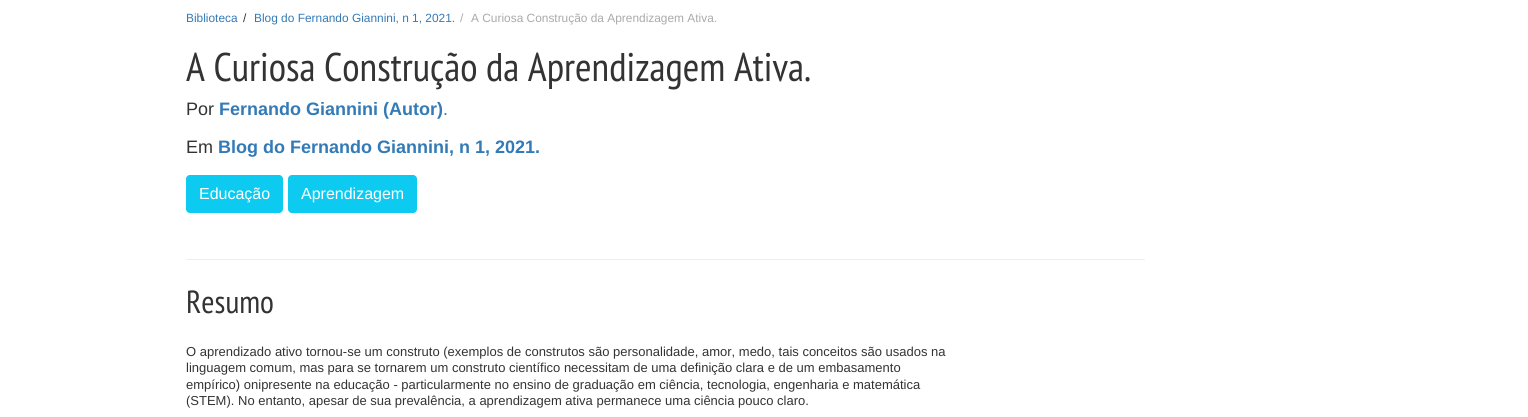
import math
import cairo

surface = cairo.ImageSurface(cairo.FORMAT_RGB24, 1528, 417)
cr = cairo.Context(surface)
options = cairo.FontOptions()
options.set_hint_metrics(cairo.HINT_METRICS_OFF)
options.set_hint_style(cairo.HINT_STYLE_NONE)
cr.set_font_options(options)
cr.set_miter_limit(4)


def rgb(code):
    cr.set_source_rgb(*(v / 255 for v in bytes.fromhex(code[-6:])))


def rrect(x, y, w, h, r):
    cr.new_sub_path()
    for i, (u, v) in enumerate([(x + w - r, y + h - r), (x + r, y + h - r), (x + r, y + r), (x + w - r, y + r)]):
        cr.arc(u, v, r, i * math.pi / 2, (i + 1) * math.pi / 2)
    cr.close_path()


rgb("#ffffff")
cr.paint()
rgb("#eeeeee")
cr.rectangle(186, 259, 959, 1)
cr.fill()
rgb("#0dcaf0")
rrect(186.5, 175.5, 96, 37, 3.5)
cr.fill_preserve()
cr.set_line_width(1)
cr.stroke()
rrect(288.5, 175.5, 128, 37, 3.5)
cr.fill_preserve()
cr.stroke()
cr.select_font_face("Liberation Sans")
cr.set_font_size(11.9)
rgb("#337ab7")
cr.move_to(186, 22)
cr.show_text("Biblioteca")
rgb("#333333")
cr.move_to(243, 22)
cr.show_text("/")
rgb("#337ab7")
cr.move_to(254, 22)
cr.show_text("Blog do Fernando Giannini, n 1, 2021.")
rgb("#aaaaaa")
cr.move_to(460, 22)
cr.show_text("/")
cr.move_to(471, 22)
cr.show_text("A Curiosa Construção da Aprendizagem Ativa.")
cr.select_font_face("PT Sans Narrow")
cr.set_font_size(40)
rgb("#333333")
cr.move_to(186, 81)
cr.show_text("A Curiosa Construção da Aprendizagem Ativa.")
cr.select_font_face("Liberation Sans")
cr.set_font_size(18)
cr.move_to(186, 115)
cr.show_text("Por")
cr.select_font_face("Liberation Sans", cairo.FONT_SLANT_NORMAL, cairo.FONT_WEIGHT_BOLD)
rgb("#337ab7")
cr.move_to(219, 115)
cr.show_text("Fernando Giannini (Autor)")
cr.select_font_face("Liberation Sans")
cr.move_to(443, 115)
cr.show_text(".")
rgb("#333333")
cr.move_to(186, 153)
cr.show_text("Em")
cr.select_font_face("Liberation Sans", cairo.FONT_SLANT_NORMAL, cairo.FONT_WEIGHT_BOLD)
rgb("#337ab7")
cr.move_to(218, 153)
cr.show_text("Blog do Fernando Giannini, n 1, 2021.")
cr.select_font_face("Liberation Sans")
cr.set_font_size(16)
rgb("#ffffff")
cr.move_to(199, 199)
cr.show_text("Educação")
cr.move_to(301, 199)
cr.show_text("Aprendizagem")
cr.select_font_face("PT Sans Narrow")
cr.set_font_size(32)
rgb("#333333")
cr.move_to(186, 313)
cr.show_text("Resumo")
cr.select_font_face("Liberation Sans")
cr.set_font_size(13)
for x, y, s in [
    (186, 356, "O aprendizado ativo tornou-se um construto (exemplos de construtos são personalidade, amor, medo, tais conceitos são usados na"),
    (186, 372, "linguagem comum, mas para se tornarem um construto científico necessitam de uma definição clara e de um embasamento"),
    (186, 389, "empírico) onipresente na educação - particularmente no ensino de graduação em ciência, tecnologia, engenharia e matemática"),
    (186, 405, "(STEM). No entanto, apesar de sua prevalência, a aprendizagem ativa permanece uma ciência pouco claro."),
]:
    cr.move_to(x, y)
    cr.show_text(s)
surface.write_to_png("page.png")
